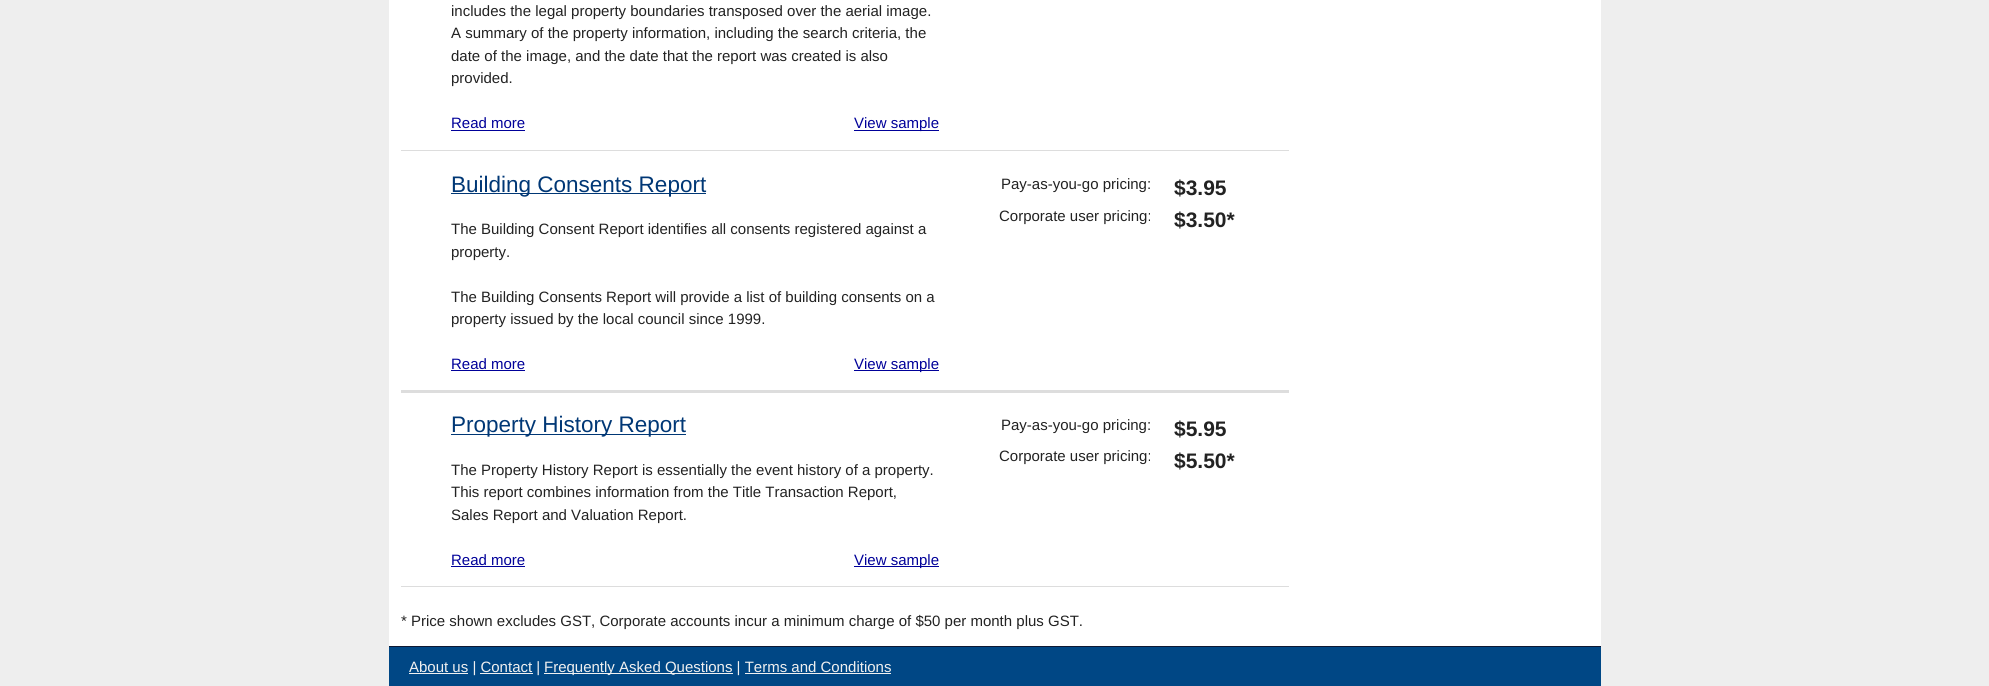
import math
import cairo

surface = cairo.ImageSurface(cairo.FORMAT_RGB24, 1989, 686)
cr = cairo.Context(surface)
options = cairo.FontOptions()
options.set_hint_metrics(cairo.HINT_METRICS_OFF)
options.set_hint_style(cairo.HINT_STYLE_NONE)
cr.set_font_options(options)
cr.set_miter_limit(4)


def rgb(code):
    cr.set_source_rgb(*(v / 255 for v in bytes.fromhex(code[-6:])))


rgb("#eeeeee")
cr.paint()
for x, y, w, h, color in [
    (389, 0, 1212, 646, "#ffffff"),
    (451, 130, 74, 1, "#000099"),
    (854, 130, 85, 1, "#000099"),
    (401, 150, 888, 1, "#dddddd"),
    (451, 193, 255, 1, "#003775"),
    (451, 370, 74, 1, "#000099"),
    (854, 370, 85, 1, "#000099"),
    (401, 390, 888, 3, "#dddddd"),
    (451, 434, 235, 1, "#003775"),
    (451, 566, 74, 1, "#000099"),
    (854, 566, 85, 1, "#000099"),
    (401, 586, 888, 1, "#dddddd"),
    (389, 647, 1212, 39, "#004785"),
    (389, 646, 1212, 1, "#0e1934"),
    (409, 673, 59, 1, "#f0f0f0"),
    (544, 673, 189, 1, "#f0f0f0"),
    (480, 673, 53, 1, "#f0f0f0"),
    (745, 673, 146, 1, "#f0f0f0"),
]:
    rgb(color)
    cr.rectangle(x, y, w, h)
    cr.fill()
cr.select_font_face("Liberation Sans")
cr.set_font_size(15)
rgb("#222222")
for x, y, s in [
    (451, 16, "includes the legal property boundaries transposed over the aerial image."),
    (451, 38, "A summary of the property information, including the search criteria, the"),
    (451, 61, "date of the image, and the date that the report was created is also"),
    (451, 83, "provided."),
]:
    cr.move_to(x, y)
    cr.show_text(s)
rgb("#000099")
cr.move_to(451, 128)
cr.show_text("Read more")
cr.move_to(854, 128)
cr.show_text("View sample")
cr.set_font_size(22.5)
rgb("#003775")
cr.move_to(451, 192)
cr.show_text("Building Consents Report")
cr.set_font_size(15)
rgb("#222222")
for x, y, s in [
    (451, 234, "The Building Consent Report identifies all consents registered against a"),
    (451, 257, "property."),
    (451, 302, "The Building Consents Report will provide a list of building consents on a"),
    (451, 324, "property issued by the local council since 1999."),
]:
    cr.move_to(x, y)
    cr.show_text(s)
rgb("#000099")
cr.move_to(451, 369)
cr.show_text("Read more")
cr.move_to(854, 369)
cr.show_text("View sample")
rgb("#222222")
cr.move_to(1001, 189)
cr.show_text("Pay-as-you-go pricing:")
cr.select_font_face("Liberation Sans", cairo.FONT_SLANT_NORMAL, cairo.FONT_WEIGHT_BOLD)
cr.set_font_size(21)
cr.move_to(1174, 195)
cr.show_text("$3.95")
cr.select_font_face("Liberation Sans")
cr.set_font_size(15)
cr.move_to(999, 221)
cr.show_text("Corporate user pricing:")
cr.select_font_face("Liberation Sans", cairo.FONT_SLANT_NORMAL, cairo.FONT_WEIGHT_BOLD)
cr.set_font_size(21)
cr.move_to(1174, 227)
cr.show_text("$3.50*")
cr.select_font_face("Liberation Sans")
cr.set_font_size(22.5)
rgb("#003775")
cr.move_to(451, 432)
cr.show_text("Property History Report")
cr.set_font_size(15)
rgb("#222222")
for x, y, s in [
    (451, 475, "The Property History Report is essentially the event history of a property."),
    (451, 497, "This report combines information from the Title Transaction Report,"),
    (451, 520, "Sales Report and Valuation Report."),
]:
    cr.move_to(x, y)
    cr.show_text(s)
rgb("#000099")
cr.move_to(451, 565)
cr.show_text("Read more")
cr.move_to(854, 565)
cr.show_text("View sample")
rgb("#222222")
cr.move_to(1001, 430)
cr.show_text("Pay-as-you-go pricing:")
cr.select_font_face("Liberation Sans", cairo.FONT_SLANT_NORMAL, cairo.FONT_WEIGHT_BOLD)
cr.set_font_size(21)
cr.move_to(1174, 436)
cr.show_text("$5.95")
cr.select_font_face("Liberation Sans")
cr.set_font_size(15)
cr.move_to(999, 461)
cr.show_text("Corporate user pricing:")
cr.select_font_face("Liberation Sans", cairo.FONT_SLANT_NORMAL, cairo.FONT_WEIGHT_BOLD)
cr.set_font_size(21)
cr.move_to(1174, 468)
cr.show_text("$5.50*")
cr.select_font_face("Liberation Sans")
cr.set_font_size(15)
cr.move_to(401, 626)
cr.show_text("* Price shown excludes GST, Corporate accounts incur a minimum charge of $50 per month plus GST.")
rgb("#f0f0f0")
cr.move_to(409, 672)
cr.show_text("About us | Contact |")
cr.move_to(544, 672)
cr.show_text("Frequently Asked Questions | Terms and Conditions")
surface.write_to_png("page.png")
